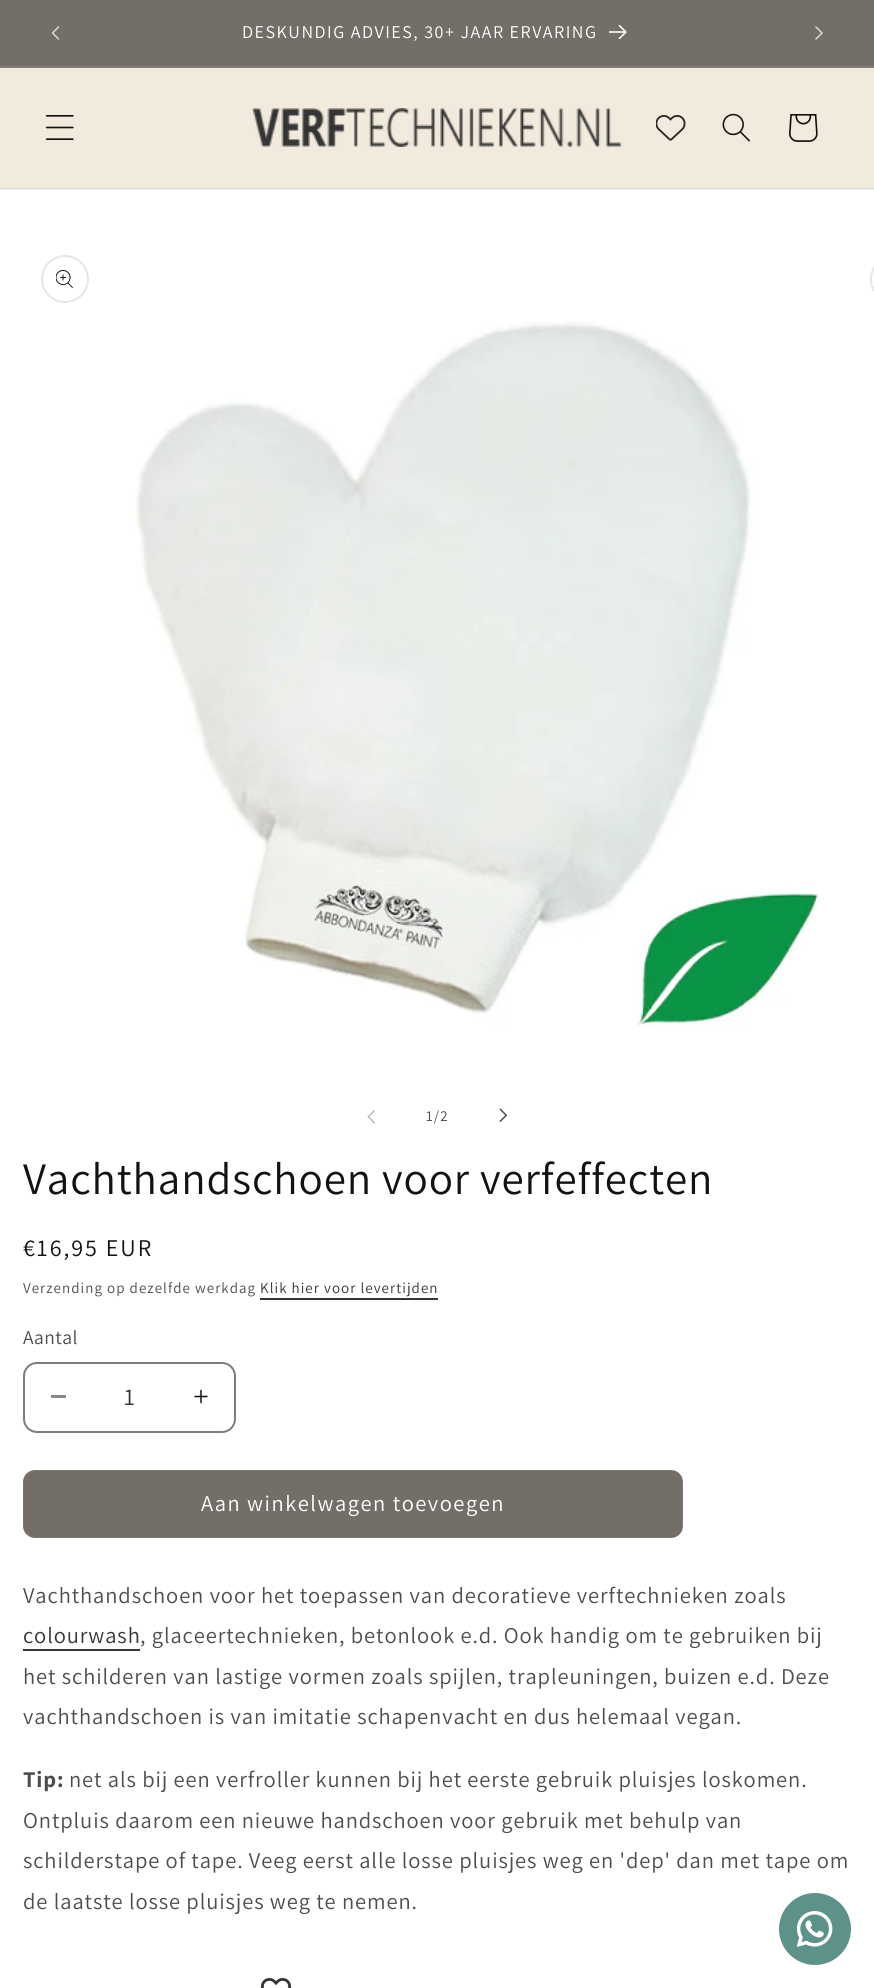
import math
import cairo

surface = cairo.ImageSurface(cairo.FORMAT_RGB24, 874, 1988)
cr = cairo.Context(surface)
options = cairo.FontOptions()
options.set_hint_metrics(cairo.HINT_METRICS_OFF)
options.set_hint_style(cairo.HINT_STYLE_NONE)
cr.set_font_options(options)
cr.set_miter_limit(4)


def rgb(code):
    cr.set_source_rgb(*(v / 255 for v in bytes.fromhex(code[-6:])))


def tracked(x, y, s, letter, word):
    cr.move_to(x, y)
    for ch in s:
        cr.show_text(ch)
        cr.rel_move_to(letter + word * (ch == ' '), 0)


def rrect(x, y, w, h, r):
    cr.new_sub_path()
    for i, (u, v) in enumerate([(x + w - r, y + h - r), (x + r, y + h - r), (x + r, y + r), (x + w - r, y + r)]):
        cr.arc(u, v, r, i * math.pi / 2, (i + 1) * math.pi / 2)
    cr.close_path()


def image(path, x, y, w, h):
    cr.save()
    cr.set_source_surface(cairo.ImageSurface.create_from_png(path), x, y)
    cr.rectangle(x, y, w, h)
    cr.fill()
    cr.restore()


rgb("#ffffff")
cr.paint()
for x, y, w, h, color in [
    (0, 189, 874, 1, "#ececec"),
    (0, 0, 874, 66, "#746e68"),
    (0, 66, 874, 2, "#7f7a74"),
]:
    rgb(color)
    cr.rectangle(x, y, w, h)
    cr.fill()
image("img/1.png", 51, 26, 9, 14)
image("img/2.png", 609, 24, 18, 15)
image("img/3.png", 815, 26, 8, 14)
rgb("#f1eadd")
cr.rectangle(0, 68, 874, 120)
cr.fill()
rgb("#dfd9cd")
cr.rectangle(0, 188, 874, 1)
cr.fill()
image("img/4.png", 45, 115, 29, 25)
image("img/5.png", 252, 108, 370, 39)
image("img/6.png", 656, 115, 30, 26)
image("img/7.png", 722, 113, 28, 29)
image("img/8.png", 789, 114, 29, 28)
cr.arc(65, 279, 23, 0, 2 * math.pi)
rgb("#e7e7e7")
cr.stroke()
image("img/9.png", 56, 270, 17, 18)
image("img/10.png", 135, 321, 684, 707)
rrect(871, 256, 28, 46, 23)
cr.stroke()
image("img/11.png", 367, 1110, 8, 14)
image("img/12.png", 499, 1108, 8, 14)
rgb("#363636")
cr.rectangle(260, 1298, 178, 2)
cr.fill()
rgb("#898989")
cr.rectangle(51, 1395, 15, 3)
cr.fill()
image("img/13.png", 194, 1389, 14, 15)
rrect(24, 1363, 211, 69, 13)
rgb("#7d7d7d")
cr.stroke()
rgb("#746e68")
rrect(23, 1470, 660, 68, 12)
cr.fill()
rrect(23.2, 1470.2, 659.6, 67.6, 11.8)
cr.set_source_rgba(1, 1, 1, 0.15)
cr.set_line_width(0.4)
cr.stroke()
rgb("#363636")
cr.rectangle(23, 1649, 117, 2)
cr.fill()
image("img/14.png", 261, 1978, 30, 10)
rgb("#5d928b")
cr.arc(815, 1929, 36, 0, 2 * math.pi)
cr.fill()
image("img/15.png", 797, 1911, 36, 36)
cr.select_font_face("Assistant")
cr.set_font_size(18)
rgb("#ffffff")
tracked(242, 38, "DESKUNDIG ADVIES, 30+ JAAR ERVARING", 1.5, 0)
cr.set_font_size(15)
rgb("#4d4d4d")
tracked(426, 1121, "1/2", 1.05, 0)
cr.set_font_size(45)
rgb("#121212")
tracked(23, 1194, "Vachthandschoen voor verfeffecten", 0.9, 0)
cr.set_font_size(24)
tracked(23, 1256, "€16,95 EUR", 2, 0)
cr.set_font_size(15)
rgb("#4d4d4d")
tracked(23, 1293, "Verzending op dezelfde werkdag", 1.05, 0)
rgb("#363636")
tracked(260, 1293, "Klik hier voor levertijden", 1.05, 0)
cr.set_font_size(19.5)
rgb("#4d4d4d")
tracked(23, 1344, "Aantal", 0.5, 0)
cr.set_font_size(24)
rgb("#363636")
cr.move_to(124, 1405)
cr.show_text("1")
cr.set_font_size(22.5)
rgb("#ffffff")
tracked(201, 1511, "Aan winkelwagen toevoegen", 1.5, 0)
rgb("#4d4d4d")
tracked(23, 1603, "Vachthandschoen voor het toepassen van decoratieve verftechnieken zoals", 0.9, 0)
rgb("#363636")
tracked(23, 1643, "colourwash", 0.9, 0)
rgb("#4d4d4d")
for x, y, s in [
    (140, 1643, ", glaceertechnieken, betonlook e.d. Ook handig om te gebruiken bij"),
    (23, 1684, "het schilderen van lastige vormen zoals spijlen, trapleuningen, buizen e.d. Deze"),
    (23, 1724, "vachthandschoen is van imitatie schapenvacht en dus helemaal vegan."),
]:
    tracked(x, y, s, 0.9, 0)
cr.select_font_face("Assistant", cairo.FONT_SLANT_NORMAL, cairo.FONT_WEIGHT_BOLD)
tracked(23, 1787, "Tip:", 0.9, 0)
cr.select_font_face("Assistant")
for x, y, s in [
    (69, 1787, "net als bij een verfroller kunnen bij het eerste gebruik pluisjes loskomen."),
    (23, 1828, "Ontpluis daarom een nieuwe handschoen voor gebruik met behulp van"),
    (23, 1868, "schilderstape of tape. Veeg eerst alle losse pluisjes weg en 'dep' dan met tape om"),
    (23, 1909, "de laatste losse pluisjes weg te nemen."),
]:
    tracked(x, y, s, 0.9, 0)
surface.write_to_png("page.png")
